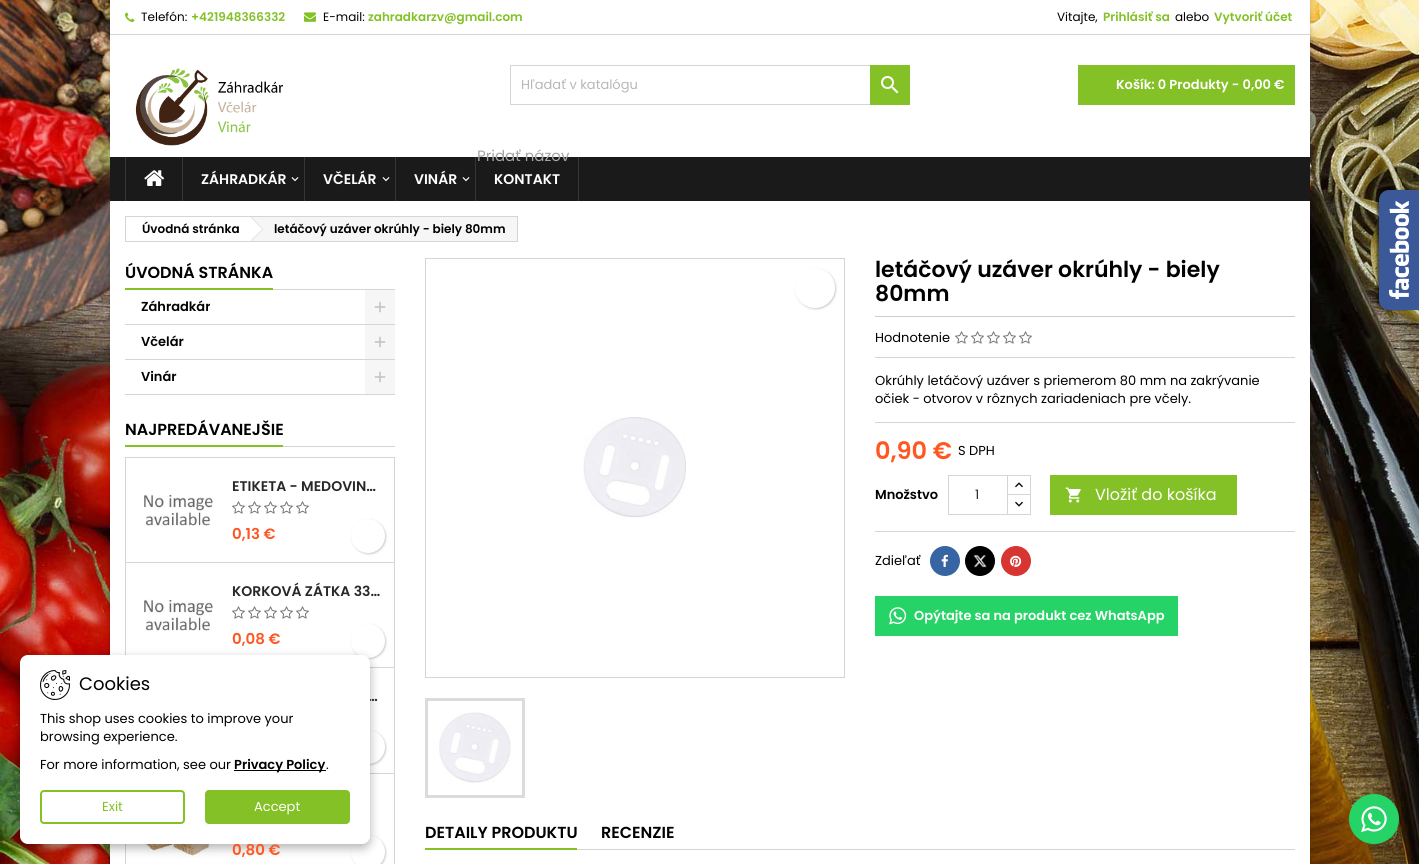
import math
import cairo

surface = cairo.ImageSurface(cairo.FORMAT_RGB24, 1419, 864)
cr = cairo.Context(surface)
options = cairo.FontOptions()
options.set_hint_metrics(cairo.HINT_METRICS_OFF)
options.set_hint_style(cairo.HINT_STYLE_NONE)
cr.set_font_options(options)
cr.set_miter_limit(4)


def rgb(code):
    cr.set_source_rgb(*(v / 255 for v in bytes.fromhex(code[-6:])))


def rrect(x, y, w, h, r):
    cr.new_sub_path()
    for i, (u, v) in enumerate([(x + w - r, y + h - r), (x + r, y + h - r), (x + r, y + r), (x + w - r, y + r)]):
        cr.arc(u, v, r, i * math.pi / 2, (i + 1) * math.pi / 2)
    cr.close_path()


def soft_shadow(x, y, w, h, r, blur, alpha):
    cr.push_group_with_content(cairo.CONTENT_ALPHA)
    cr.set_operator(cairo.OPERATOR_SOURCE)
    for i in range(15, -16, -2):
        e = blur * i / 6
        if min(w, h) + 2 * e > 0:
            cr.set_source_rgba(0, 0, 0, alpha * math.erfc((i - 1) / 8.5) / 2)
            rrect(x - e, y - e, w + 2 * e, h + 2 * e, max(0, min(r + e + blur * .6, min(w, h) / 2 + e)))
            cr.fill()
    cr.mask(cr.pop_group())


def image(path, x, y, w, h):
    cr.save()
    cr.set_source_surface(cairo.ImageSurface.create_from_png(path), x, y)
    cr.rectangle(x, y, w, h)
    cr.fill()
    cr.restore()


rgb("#ffffff")
cr.paint()
image("img/1.png", 0, 0, 1419, 864)
rgb("#000000")
soft_shadow(110, 0, 1200, 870, 0, 2, 0.2)
rgb("#ffffff")
cr.rectangle(110, 0, 1200, 864)
cr.fill()
rgb("#d6d4d4")
cr.rectangle(110, 34, 1200, 1)
cr.fill()
image("img/2.png", 125, 12, 10, 10)
image("img/3.png", 304, 12, 12, 10)
image("img/4.png", 135, 68, 149, 78)
cr.rectangle(510.5, 65.5, 399, 39)
cr.set_line_width(1)
cr.stroke()
rgb("#83c127")
cr.rectangle(870, 65, 40, 40)
cr.fill()
image("img/5.png", 881, 76, 18, 18)
for x, y, w, h, color in [
    (1078, 65, 217, 40, "#83c127"),
    (110, 157, 1200, 44, "#1b1a1b"),
    (125, 157, 1, 44, "#363636"),
]:
    rgb(color)
    cr.rectangle(x, y, w, h)
    cr.fill()
image("img/6.png", 144, 170, 21, 16)
cr.rectangle(182, 157, 1, 44)
cr.fill()
image("img/7.png", 291, 177, 8, 5)
cr.rectangle(304, 157, 1, 44)
cr.fill()
image("img/7.png", 382, 177, 8, 5)
cr.rectangle(395, 157, 1, 44)
cr.fill()
image("img/7.png", 462, 177, 8, 5)
for x, y, w, h, color in [
    (578, 157, 1, 44, "#363636"),
    (475, 157, 1, 44, "#363636"),
    (394, 563, 1, 301, "#d6d4d4"),
    (370, 667, 25, 1, "#d6d4d4"),
    (125, 563, 1, 92, "#d6d4d4"),
]:
    rgb(color)
    cr.rectangle(x, y, w, h)
    cr.fill()
rgb("#000000")
soft_shadow(352, 625, 34, 34, 17, 1, 0.2)
rgb("#ffffff")
cr.arc(368, 641, 17, 0, 2 * math.pi)
cr.fill()
rgb("#d6d4d4")
cr.rectangle(370, 773, 25, 1)
cr.fill()
rgb("#000000")
soft_shadow(352, 731, 34, 34, 17, 1, 0.2)
rgb("#ffffff")
cr.arc(368, 747, 17, 0, 2 * math.pi)
cr.fill()
rgb("#d6d4d4")
cr.rectangle(125, 844, 1, 20)
cr.fill()
image("img/13.png", 141, 844, 71, 13)
rgb("#000000")
soft_shadow(352, 836, 34, 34, 17, 1, 0.2)
rgb("#ffffff")
cr.arc(368, 852, 17, 0, 2 * math.pi)
cr.fill()
rgb("#000000")
soft_shadow(20, 659, 350, 189, 8, 5, 0.3)
rgb("#25d366")
cr.arc(1374, 819, 25, 0, 2 * math.pi)
cr.fill()
image("img/9.png", 1361, 806, 26, 27)
cr.rectangle(125.5, 216.5, 392, 25)
rgb("#d6d4d4")
cr.stroke()
rgb("#f6f6f6")
cr.rectangle(252, 217, 265, 24)
cr.fill()
rgb("#ffffff")
cr.new_path()
cr.move_to(252.5, 217.5)
cr.line_to(262.5, 227.5)
cr.curve_to(263, 228.5, 263, 229.5, 262.5, 230.5)
cr.line_to(252.5, 240.5)
cr.curve_to(251.5, 241, 250.5, 241, 249.5, 240.5)
cr.line_to(239.5, 230.5)
cr.curve_to(239, 229.5, 239, 228.5, 239.5, 227.5)
cr.line_to(249.5, 217.5)
cr.curve_to(250.5, 217, 251.5, 217, 252.5, 217.5)
cr.close_path()
cr.fill()
rgb("#d6d4d4")
cr.new_path()
cr.move_to(251.5, 217)
cr.line_to(263, 228.5)
cr.line_to(262.5, 229)
cr.line_to(251, 217.5)
cr.close_path()
cr.move_to(262.5, 229)
cr.line_to(263, 229.5)
cr.line_to(251.5, 241)
cr.line_to(251, 240.5)
cr.close_path()
cr.fill()
for x, y, w, h, color in [
    (273, 289, 122, 1, "#d6d4d4"),
    (125, 288, 148, 2, "#83c127"),
    (125, 324, 270, 1, "#d6d4d4"),
    (365, 290, 30, 34, "#f6f6f6"),
]:
    rgb(color)
    cr.rectangle(x, y, w, h)
    cr.fill()
image("img/10.png", 374, 301, 12, 12)
rgb("#d6d4d4")
cr.rectangle(125, 359, 270, 1)
cr.fill()
rgb("#f6f6f6")
cr.rectangle(365, 325, 30, 34)
cr.fill()
image("img/10.png", 374, 336, 12, 12)
rgb("#d6d4d4")
cr.rectangle(125, 394, 270, 1)
cr.fill()
rgb("#f6f6f6")
cr.rectangle(365, 360, 30, 34)
cr.fill()
image("img/10.png", 374, 371, 12, 12)
rgb("#d6d4d4")
cr.rectangle(283, 446, 112, 1)
cr.fill()
rgb("#83c127")
cr.rectangle(125, 445, 158, 2)
cr.fill()
cr.rectangle(125.5, 457.5, 269, 105)
rgb("#d6d4d4")
cr.stroke()
image("img/11.png", 144, 494, 69, 32)
image("img/12.png", 232, 501, 13, 13)
image("img/12.png", 248, 501, 13, 13)
image("img/12.png", 264, 501, 13, 13)
image("img/12.png", 280, 501, 13, 13)
image("img/12.png", 296, 501, 13, 13)
rgb("#000000")
soft_shadow(352, 520, 34, 34, 17, 1, 0.2)
rgb("#ffffff")
cr.arc(368, 536, 17, 0, 2 * math.pi)
cr.fill()
image("img/11.png", 144, 599, 69, 32)
image("img/12.png", 232, 606, 13, 13)
image("img/12.png", 248, 606, 13, 13)
image("img/12.png", 264, 606, 13, 13)
image("img/12.png", 280, 606, 13, 13)
image("img/12.png", 296, 606, 13, 13)
cr.rectangle(425.5, 258.5, 419, 419)
rgb("#d6d4d4")
cr.stroke()
image("img/14.png", 583, 417, 103, 101)
cr.rectangle(426.5, 699.5, 97, 97)
rgb("#dbdbdb")
cr.set_line_width(3)
cr.stroke()
image("img/15.png", 439, 712, 72, 71)
rgb("#cccccc")
cr.rectangle(875, 316, 420, 1)
cr.fill()
image("img/12.png", 955, 331, 13, 13)
image("img/12.png", 971, 331, 13, 13)
image("img/12.png", 987, 331, 13, 13)
image("img/12.png", 1003, 331, 13, 13)
image("img/12.png", 1019, 331, 13, 13)
rgb("#d6d4d4")
cr.rectangle(875, 357, 420, 1)
cr.fill()
cr.rectangle(875, 422, 420, 1)
cr.fill()
rgb("#000000")
soft_shadow(796, 269, 40, 40, 20, 1, 0.2)
rgb("#ffffff")
cr.arc(815, 288, 20, 0, 2 * math.pi)
cr.fill()
cr.rectangle(1007.5, 475.5, 23, 20)
rgb("#d6d4d4")
cr.set_line_width(1)
cr.stroke()
rgb("#ffffff")
cr.rectangle(1008, 495, 22, 1)
cr.fill()
cr.rectangle(1007.5, 494.5, 23, 20)
rgb("#d6d4d4")
cr.stroke()
cr.rectangle(948.5, 475.5, 59, 39)
cr.stroke()
image("img/16.png", 1015, 482, 8, 6)
image("img/17.png", 1015, 501, 8, 6)
rgb("#83c127")
cr.rectangle(1050, 475, 187, 40)
cr.fill()
image("img/18.png", 1065, 487, 16, 16)
rgb("#d6d4d4")
cr.rectangle(875, 531, 420, 1)
cr.fill()
rgb("#3765a3")
cr.arc(945, 561, 15, 0, 2 * math.pi)
cr.fill()
image("img/19.png", 941, 554, 7, 13)
rgb("#000000")
cr.arc(980, 561, 15, 0, 2 * math.pi)
cr.fill()
image("img/20.png", 973, 554, 14, 14)
rgb("#d73532")
cr.arc(1016, 561, 15, 0, 2 * math.pi)
cr.fill()
image("img/21.png", 1010, 555, 12, 12)
rgb("#25d366")
cr.rectangle(875, 596, 303, 40)
cr.fill()
image("img/22.png", 889, 607, 18, 18)
rgb("#d6d4d4")
cr.rectangle(577, 849, 718, 1)
cr.fill()
rgb("#83c127")
cr.rectangle(425, 848, 152, 2)
cr.fill()
rgb("#000000")
soft_shadow(1377, 190, 40, 120, 10, 1, 0.5)
rgb("#3b5998")
cr.new_path()
cr.move_to(1389, 190)
cr.line_to(1419, 190)
cr.line_to(1419, 310)
cr.line_to(1389, 310)
cr.curve_to(1383.5, 310, 1379, 305.5, 1379, 300)
cr.line_to(1379, 200)
cr.curve_to(1379, 194.5, 1383.5, 190, 1389, 190)
cr.close_path()
cr.fill()
image("img/23.png", 1389, 201, 20, 98)
cr.select_font_face("Poppins")
cr.set_font_size(12)
rgb("#000000")
cr.move_to(141, 21)
cr.show_text("Telefón:")
cr.select_font_face("Poppins SemiBold")
rgb("#83c127")
cr.move_to(191, 21)
cr.show_text("+421948366332")
cr.select_font_face("Poppins")
rgb("#000000")
cr.move_to(323, 21)
cr.show_text("E-mail:")
cr.select_font_face("Poppins SemiBold")
rgb("#83c127")
cr.move_to(368, 21)
cr.show_text("zahradkarzv@gmail.com")
cr.select_font_face("Poppins")
rgb("#000000")
cr.move_to(1057, 21)
cr.show_text("Vitajte,")
cr.select_font_face("Poppins SemiBold")
rgb("#83c127")
cr.move_to(1103, 21)
cr.show_text("Prihlásiť sa")
cr.select_font_face("Poppins")
rgb("#000000")
cr.move_to(1175, 21)
cr.show_text("alebo")
cr.select_font_face("Poppins SemiBold")
rgb("#83c127")
cr.move_to(1214, 21)
cr.show_text("Vytvoriť účet")
cr.select_font_face("Poppins")
cr.set_font_size(13)
rgb("#b7b7b7")
cr.move_to(521, 89)
cr.show_text("Hľadať v katalógu")
cr.select_font_face("Poppins SemiBold")
rgb("#ffffff")
cr.move_to(1116, 89)
cr.show_text("Košík: 0 Produkty - 0,00 €")
cr.set_font_size(14)
for x, y, s in [
    (201, 184, "ZÁHRADKÁR"),
    (323, 184, "VČELÁR"),
    (414, 184, "VINÁR"),
    (494, 184, "KONTAKT"),
]:
    cr.move_to(x, y)
    cr.show_text(s)
cr.select_font_face("Poppins")
cr.set_font_size(15)
rgb("#a6a6a6")
cr.move_to(477, 161)
cr.show_text("Pridať názov")
cr.select_font_face("Poppins SemiBold")
cr.set_font_size(12)
rgb("#000000")
cr.move_to(142, 233)
cr.show_text("Úvodná stránka")
cr.move_to(274, 233)
cr.show_text("letáčový uzáver okrúhly - biely 80mm")
cr.set_font_size(16)
cr.move_to(125, 278)
cr.show_text("ÚVODNÁ STRÁNKA")
cr.set_font_size(13)
for x, y, s in [
    (141, 311, "Záhradkár"),
    (141, 346, "Včelár"),
    (141, 381, "Vinár"),
]:
    cr.move_to(x, y)
    cr.show_text(s)
cr.set_font_size(16)
cr.move_to(125, 435)
cr.show_text("NAJPREDÁVANEJŠIE")
cr.set_font_size(14)
rgb("#282828")
cr.move_to(232, 491)
cr.show_text("ETIKETA - MEDOVIN…")
cr.set_font_size(15)
rgb("#ff5722")
cr.move_to(232, 539)
cr.show_text("0,13 €")
cr.set_font_size(14)
rgb("#282828")
cr.move_to(232, 596)
cr.show_text("KORKOVÁ ZÁTKA 33…")
cr.set_font_size(15)
rgb("#ff5722")
cr.move_to(232, 644)
cr.show_text("0,08 €")
cr.set_font_size(14)
rgb("#282828")
cr.move_to(368, 701)
cr.show_text("…")
cr.set_font_size(15)
rgb("#ff5722")
cr.move_to(232, 855)
cr.show_text("0,80 €")
rgb("#ffffff")
rrect(20, 655, 350, 189, 8)
cr.fill()
image("img/8.png", 40, 670, 30, 30)
rgb("#83c127")
rrect(206, 791, 143, 32, 3)
cr.fill_preserve()
cr.set_line_width(2)
cr.stroke()
cr.select_font_face("Poppins")
cr.set_font_size(13)
rgb("#ffffff")
cr.move_to(254, 811)
cr.show_text("Accept")
rrect(41, 791, 143, 32, 3)
rgb("#83c127")
cr.stroke()
cr.move_to(102, 811)
cr.show_text("Exit")
rgb("#000000")
cr.move_to(326, 769)
cr.show_text(".")
cr.rectangle(234, 770, 92, 1)
cr.fill()
cr.select_font_face("Poppins SemiBold")
cr.move_to(234, 769)
cr.show_text("Privacy Policy")
cr.select_font_face("Poppins")
for x, y, s in [
    (40, 769, "For more information, see our"),
    (40, 741, "browsing experience."),
    (40, 723, "This shop uses cookies to improve your"),
]:
    cr.move_to(x, y)
    cr.show_text(s)
cr.set_font_size(18)
cr.move_to(79, 690)
cr.show_text("Cookies")
cr.select_font_face("Poppins SemiBold")
cr.set_font_size(22)
cr.move_to(875, 277)
cr.show_text("letáčový uzáver okrúhly - biely")
cr.move_to(875, 301)
cr.show_text("80mm")
cr.select_font_face("Poppins")
cr.set_font_size(13)
for x, y, s in [
    (875, 342, "Hodnotenie"),
    (875, 385, "Okrúhly letáčový uzáver s priemerom 80 mm na zakrývanie"),
    (875, 403, "očiek - otvorov v rôznych zariadeniach pre včely."),
]:
    cr.move_to(x, y)
    cr.show_text(s)
cr.select_font_face("Poppins SemiBold")
cr.set_font_size(24)
rgb("#ff5722")
cr.move_to(875, 459)
cr.show_text("0,90 €")
cr.select_font_face("Poppins")
cr.set_font_size(13)
rgb("#000000")
cr.move_to(958, 455)
cr.show_text("S DPH")
cr.select_font_face("Poppins SemiBold")
cr.move_to(875, 499)
cr.show_text("Množstvo")
cr.select_font_face("Poppins")
rgb("#282828")
cr.move_to(975, 499)
cr.show_text("1")
cr.set_font_size(16)
rgb("#ffffff")
cr.move_to(1095, 500)
cr.show_text("Vložiť do košíka")
cr.set_font_size(13)
rgb("#000000")
cr.move_to(875, 565)
cr.show_text("Zdieľať")
cr.select_font_face("Poppins SemiBold")
rgb("#ffffff")
cr.move_to(914, 620)
cr.show_text("Opýtajte sa na produkt cez WhatsApp")
cr.set_font_size(16)
rgb("#000000")
cr.move_to(425, 838)
cr.show_text("DETAILY PRODUKTU")
cr.move_to(601, 838)
cr.show_text("RECENZIE")
surface.write_to_png("page.png")
